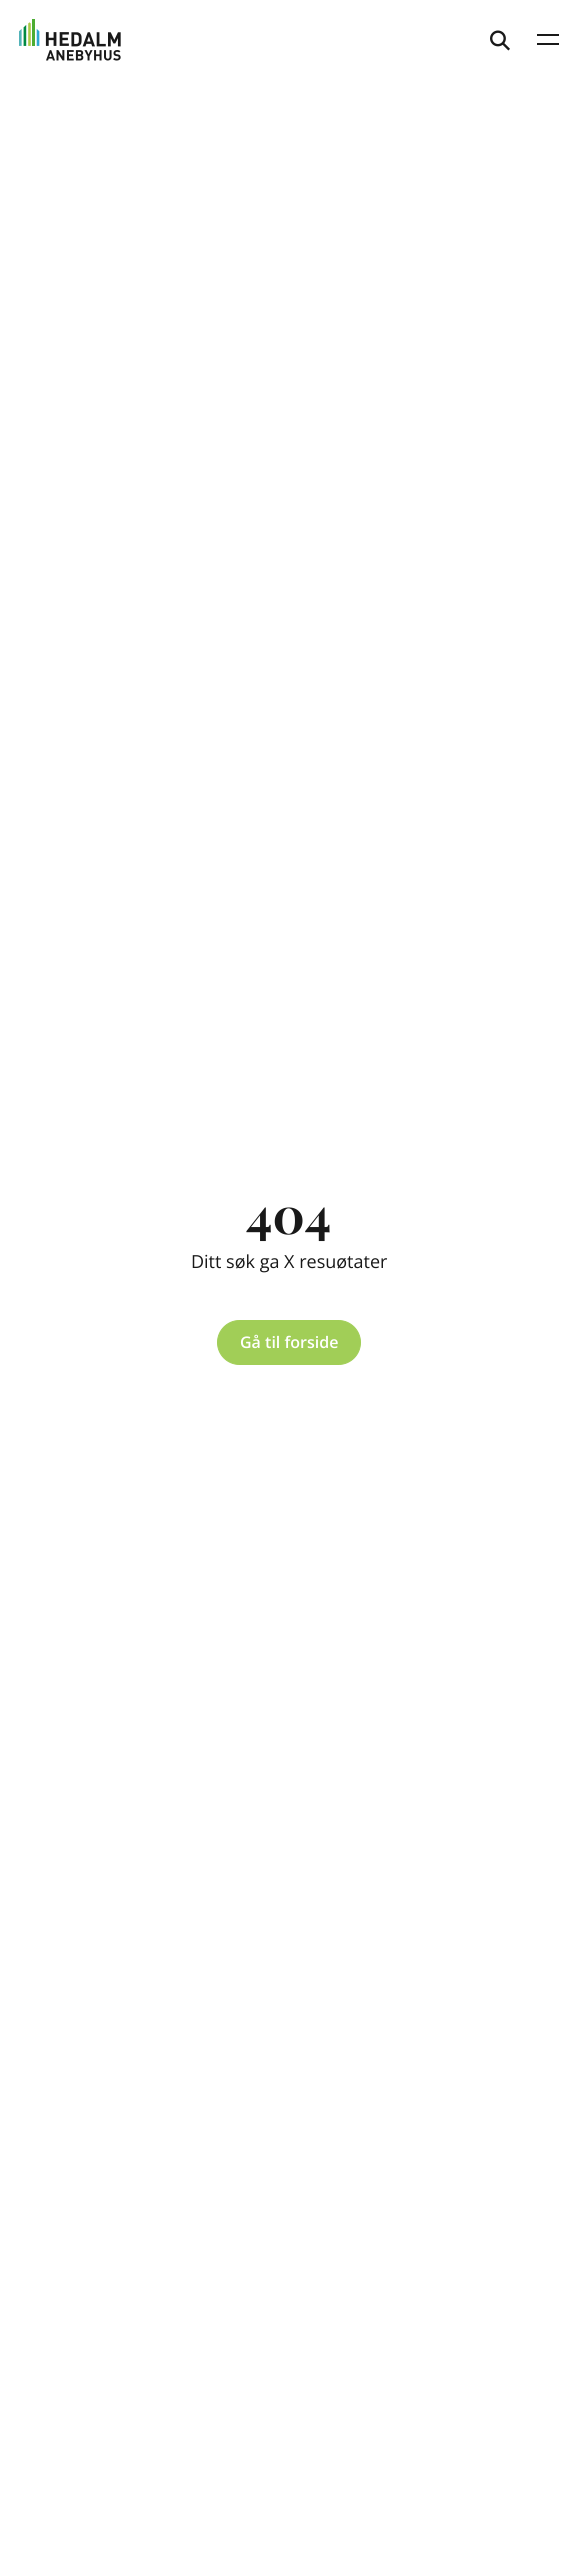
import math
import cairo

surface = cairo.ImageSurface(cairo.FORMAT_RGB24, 578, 2561)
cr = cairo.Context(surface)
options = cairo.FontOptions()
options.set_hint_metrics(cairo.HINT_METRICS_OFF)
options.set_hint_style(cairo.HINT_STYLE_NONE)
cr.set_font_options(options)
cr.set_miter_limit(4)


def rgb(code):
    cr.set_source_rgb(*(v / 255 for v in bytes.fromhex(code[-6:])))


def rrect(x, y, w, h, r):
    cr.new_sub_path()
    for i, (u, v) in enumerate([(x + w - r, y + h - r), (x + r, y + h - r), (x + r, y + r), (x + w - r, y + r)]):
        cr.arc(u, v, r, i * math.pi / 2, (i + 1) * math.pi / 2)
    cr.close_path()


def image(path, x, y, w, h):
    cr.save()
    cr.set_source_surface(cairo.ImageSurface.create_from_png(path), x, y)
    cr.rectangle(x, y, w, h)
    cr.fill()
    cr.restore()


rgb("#ffffff")
cr.paint()
image("img/1.png", 19, 19, 102, 42)
image("img/2.png", 490, 30, 20, 21)
rgb("#191919")
cr.rectangle(537, 34, 22, 2)
cr.fill()
cr.rectangle(537, 43, 22, 2)
cr.fill()
rgb("#a1ce57")
rrect(217.5, 1320.5, 143, 44, 22)
cr.fill_preserve()
cr.set_line_width(1)
cr.stroke()
cr.select_font_face("Playfair Display", cairo.FONT_SLANT_NORMAL, cairo.FONT_WEIGHT_BOLD)
cr.set_font_size(50)
rgb("#191919")
cr.move_to(246, 1234)
cr.show_text("404")
cr.select_font_face("Open Sans")
cr.set_font_size(18)
cr.move_to(191, 1268)
cr.show_text("Ditt søk ga X resuøtater")
cr.select_font_face("Open Sans SemiBold")
cr.set_font_size(16)
rgb("#ffffff")
cr.move_to(240, 1348)
cr.show_text("Gå til forside")
surface.write_to_png("page.png")
